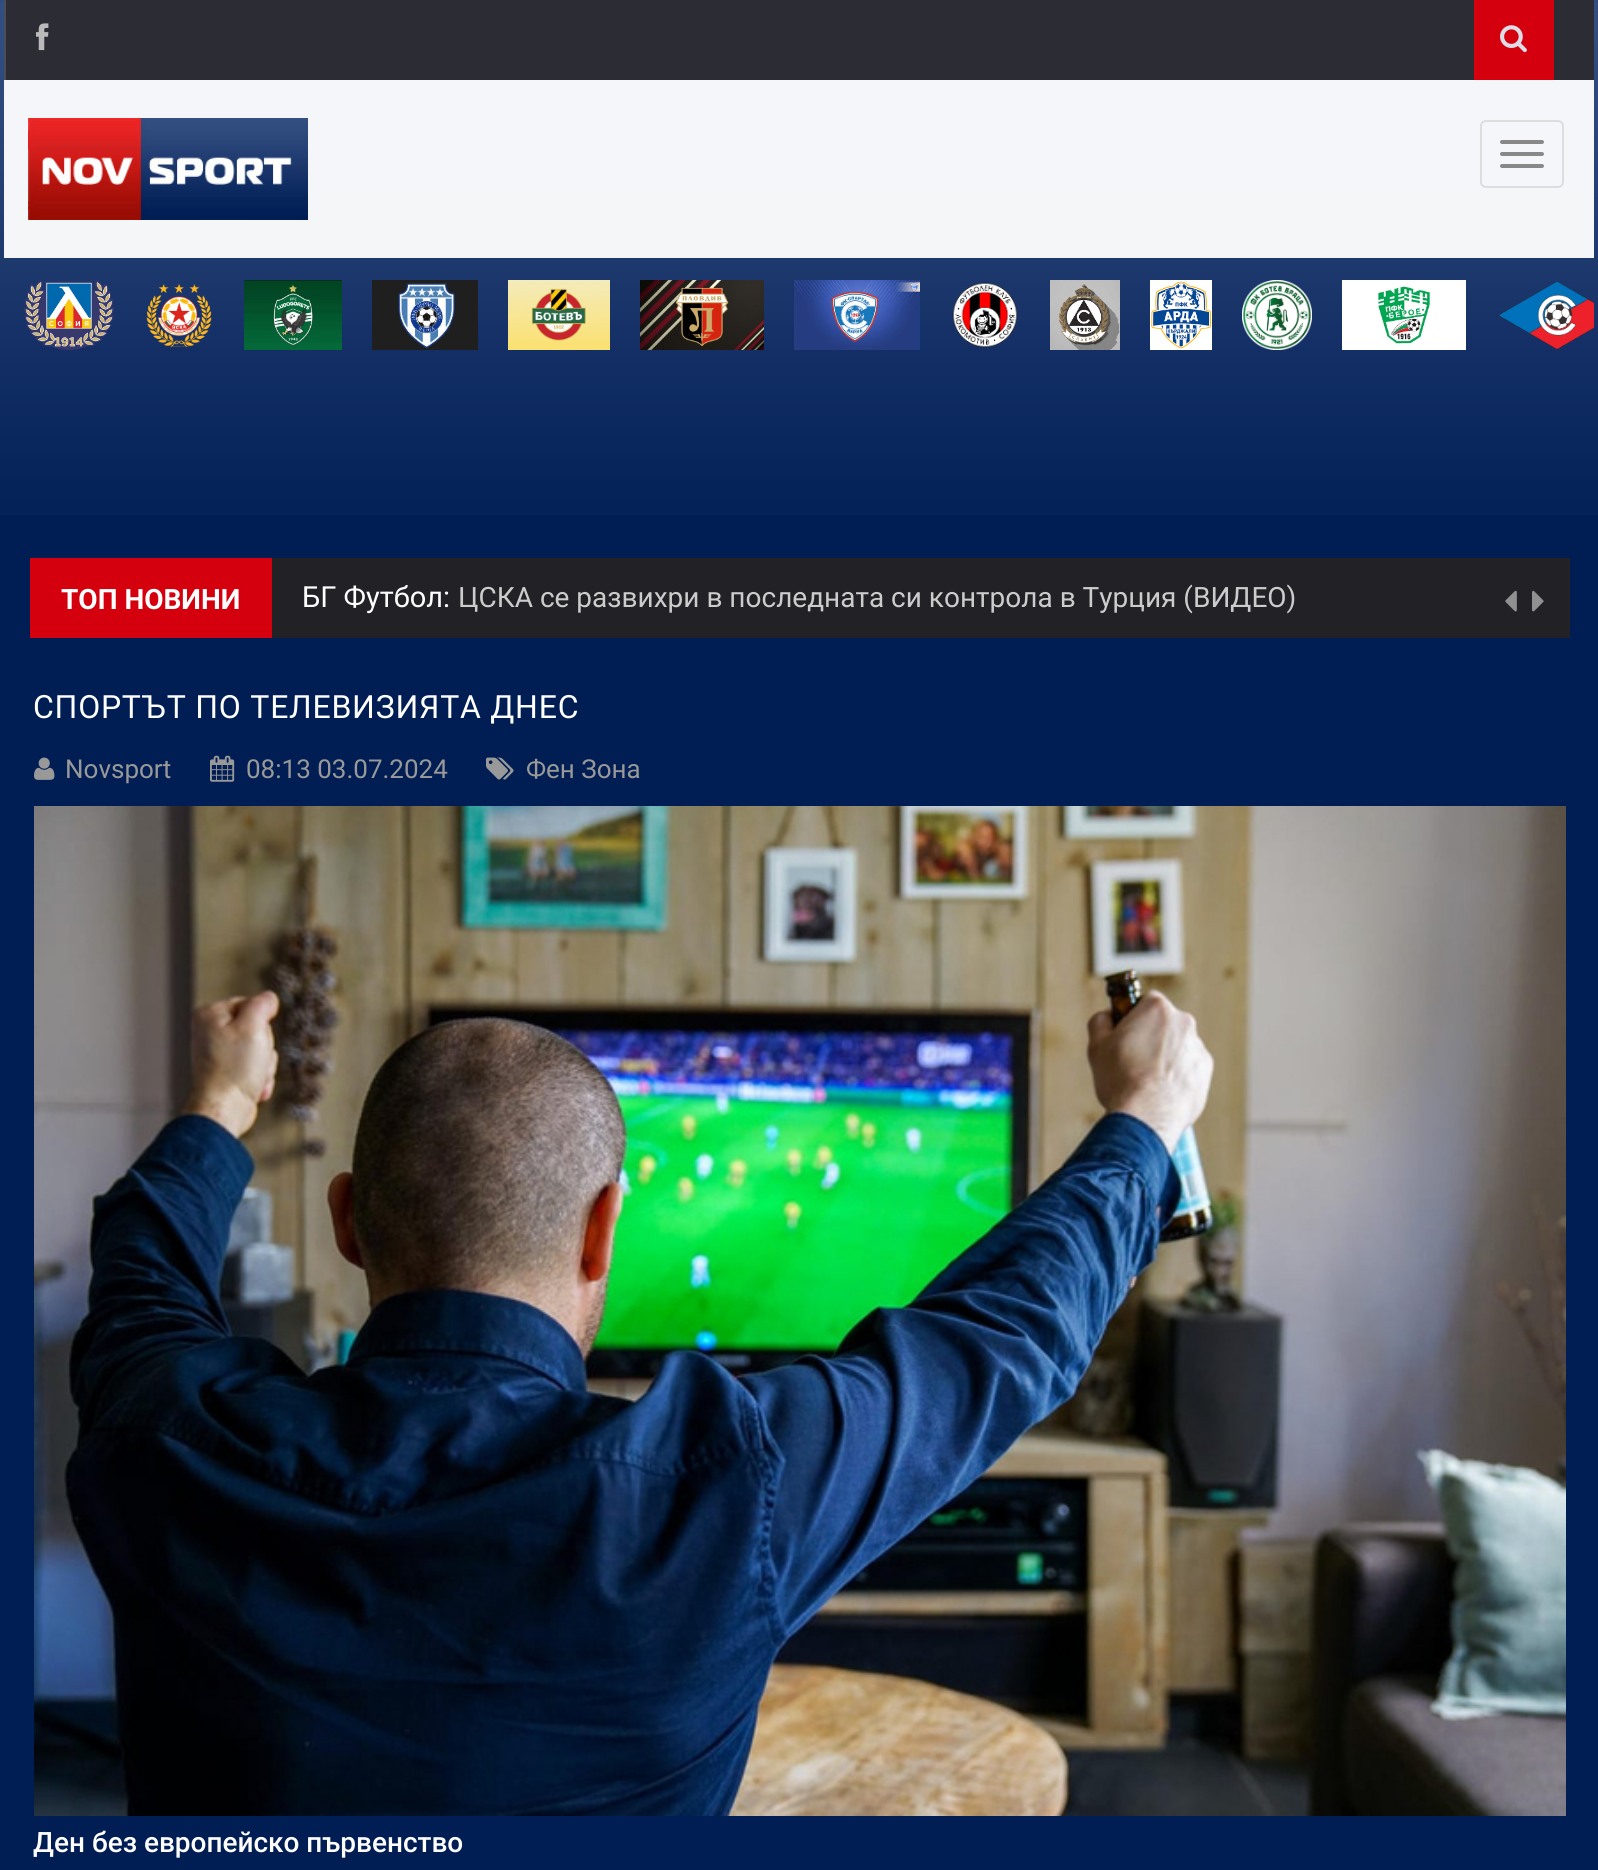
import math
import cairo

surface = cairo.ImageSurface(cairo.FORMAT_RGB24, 1598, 1870)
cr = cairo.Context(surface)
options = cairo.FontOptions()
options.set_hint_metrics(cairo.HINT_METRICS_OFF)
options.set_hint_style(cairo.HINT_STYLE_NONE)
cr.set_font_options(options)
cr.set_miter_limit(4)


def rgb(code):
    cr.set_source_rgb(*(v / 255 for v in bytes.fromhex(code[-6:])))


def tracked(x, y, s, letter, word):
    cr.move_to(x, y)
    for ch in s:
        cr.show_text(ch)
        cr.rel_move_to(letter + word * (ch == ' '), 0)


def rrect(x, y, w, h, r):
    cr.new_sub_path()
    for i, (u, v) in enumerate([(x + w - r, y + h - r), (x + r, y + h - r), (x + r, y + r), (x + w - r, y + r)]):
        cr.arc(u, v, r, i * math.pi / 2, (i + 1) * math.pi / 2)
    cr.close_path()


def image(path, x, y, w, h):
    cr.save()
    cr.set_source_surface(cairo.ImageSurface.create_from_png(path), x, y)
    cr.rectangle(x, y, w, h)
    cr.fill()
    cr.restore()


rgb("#001d54")
cr.paint()
image("img/1.png", 0, 0, 1598, 515)
rgb("#2c2c34")
cr.rectangle(6, 0, 1588, 80)
cr.fill()
rgb("#4c4c59")
cr.rectangle(4, 0, 2, 80)
cr.fill()
image("img/2.png", 36, 23, 13, 28)
rgb("#d4000e")
cr.rectangle(1474, 0, 80, 80)
cr.fill()
image("img/3.png", 1500, 25, 27, 28)
cr.set_source_rgba(1, 1, 1, 0.95)
cr.rectangle(4, 80, 1590, 178)
cr.fill()
image("img/4.png", 28, 118, 280, 102)
rrect(1481, 121, 82, 66, 5)
rgb("#dddddd")
cr.stroke()
rgb("#888888")
rrect(1500, 140, 44, 4, 2)
cr.fill()
rrect(1500, 152, 44, 4, 2)
cr.fill()
rrect(1500, 164, 44, 4, 2)
cr.fill()
image("img/5.png", 24, 280, 90, 70)
image("img/6.png", 146, 284, 66, 64)
image("img/7.png", 244, 280, 98, 70)
image("img/8.png", 372, 280, 106, 70)
image("img/9.png", 508, 280, 102, 70)
image("img/10.png", 640, 280, 124, 70)
image("img/11.png", 794, 280, 126, 70)
image("img/12.png", 952, 282, 66, 66)
image("img/13.png", 1050, 280, 70, 70)
image("img/14.png", 1150, 280, 62, 70)
image("img/15.png", 1242, 280, 70, 70)
image("img/16.png", 1342, 280, 124, 70)
image("img/17.png", 1498, 281, 96, 69)
rgb("#d4000e")
cr.rectangle(30, 558, 242, 80)
cr.fill()
rgb("#212126")
cr.rectangle(272, 558, 1298, 80)
cr.fill()
image("img/18.png", 1505, 590, 12, 22)
image("img/19.png", 1532, 590, 12, 22)
image("img/20.png", 34, 757, 21, 23)
image("img/21.png", 210, 755, 25, 27)
image("img/22.png", 486, 757, 28, 23)
image("img/23.png", 34, 806, 1532, 1010)
cr.select_font_face("Roboto", cairo.FONT_SLANT_NORMAL, cairo.FONT_WEIGHT_BOLD)
cr.set_font_size(28)
rgb("#ffffff")
cr.move_to(61, 609)
cr.show_text("ТОП НОВИНИ")
cr.select_font_face("Roboto")
cr.set_font_size(29)
cr.move_to(302, 607)
cr.show_text("БГ Футбол:")
cr.set_font_size(28)
rgb("#cccccc")
cr.move_to(458, 607)
cr.show_text("ЦСКА се развихри в последната си контрола в Турция (ВИДЕО)")
cr.set_font_size(32)
rgb("#ffffff")
tracked(33, 718, "СПОРТЪТ ПО ТЕЛЕВИЗИЯТА ДНЕС", 0.75, 0)
cr.set_font_size(26)
rgb("#999999")
for x, y, s in [
    (65, 778, "Novsport"),
    (246, 778, "08:13 03.07.2024"),
    (526, 778, "Фен Зона"),
]:
    cr.move_to(x, y)
    cr.show_text(s)
cr.select_font_face("Roboto Medium")
cr.set_font_size(28)
rgb("#ffffff")
cr.move_to(33, 1852)
cr.show_text("Ден без европейско първенство")
surface.write_to_png("page.png")
